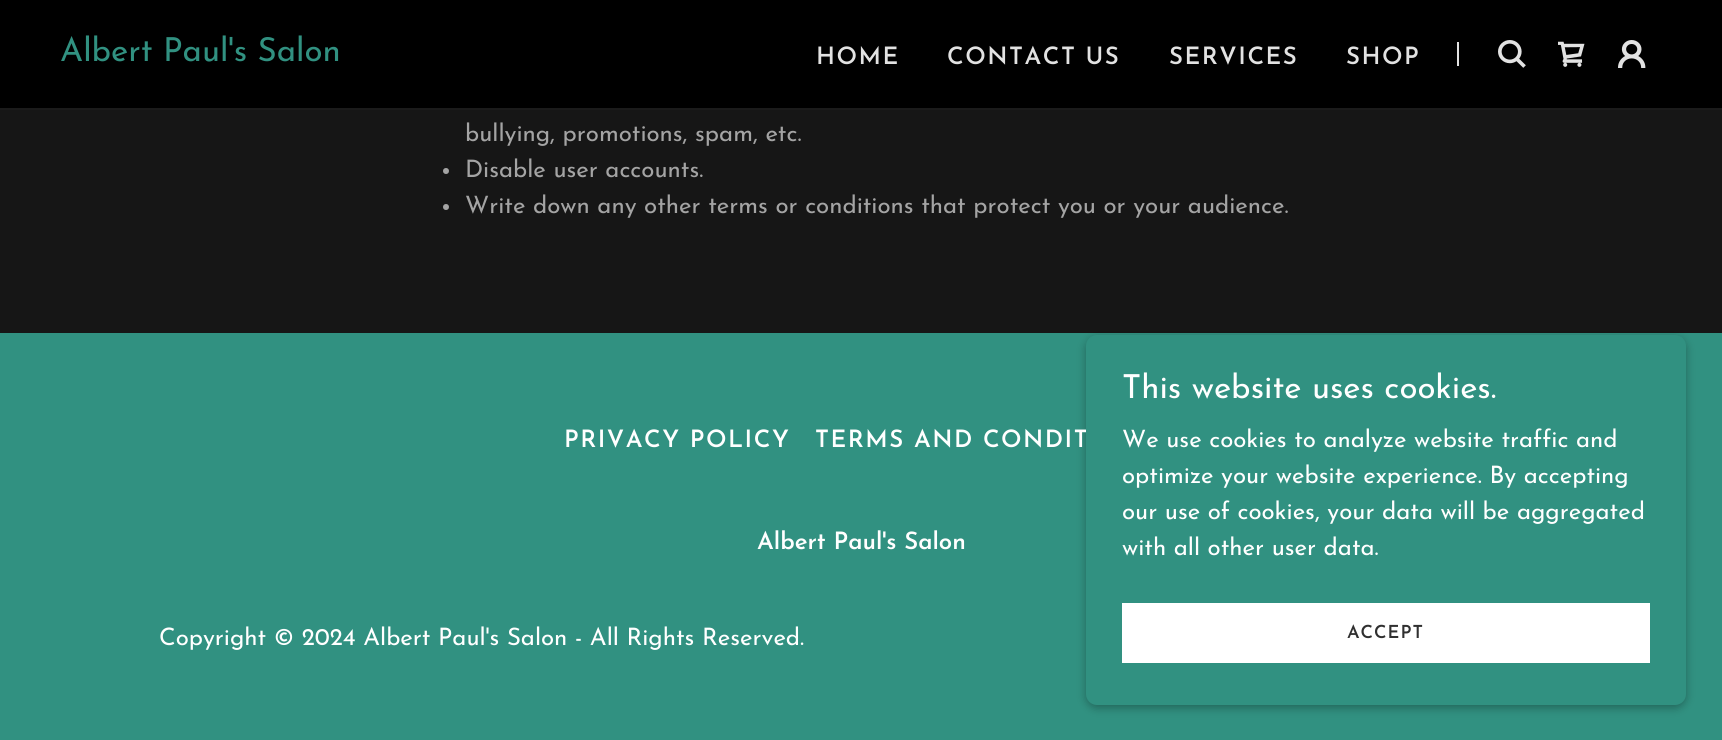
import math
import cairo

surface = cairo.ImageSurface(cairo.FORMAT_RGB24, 1722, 740)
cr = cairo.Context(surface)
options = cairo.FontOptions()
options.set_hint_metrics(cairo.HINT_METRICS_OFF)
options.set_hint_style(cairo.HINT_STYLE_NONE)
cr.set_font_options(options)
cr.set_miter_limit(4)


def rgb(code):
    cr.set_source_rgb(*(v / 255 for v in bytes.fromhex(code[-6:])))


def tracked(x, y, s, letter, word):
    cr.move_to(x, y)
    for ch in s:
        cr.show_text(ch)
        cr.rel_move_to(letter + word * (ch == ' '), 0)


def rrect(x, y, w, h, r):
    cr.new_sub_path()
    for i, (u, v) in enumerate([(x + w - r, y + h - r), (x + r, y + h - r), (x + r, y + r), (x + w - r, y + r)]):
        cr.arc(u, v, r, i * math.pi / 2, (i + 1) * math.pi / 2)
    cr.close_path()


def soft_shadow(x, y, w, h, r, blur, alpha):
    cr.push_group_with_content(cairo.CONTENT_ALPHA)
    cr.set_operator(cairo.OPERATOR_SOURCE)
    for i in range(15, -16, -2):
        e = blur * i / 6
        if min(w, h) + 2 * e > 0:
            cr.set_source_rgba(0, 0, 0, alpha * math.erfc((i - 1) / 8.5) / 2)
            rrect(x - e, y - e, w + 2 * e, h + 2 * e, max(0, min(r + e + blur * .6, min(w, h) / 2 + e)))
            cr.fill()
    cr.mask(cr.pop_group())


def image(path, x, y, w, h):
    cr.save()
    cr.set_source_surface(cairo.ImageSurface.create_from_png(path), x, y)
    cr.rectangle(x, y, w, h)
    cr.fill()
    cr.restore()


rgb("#319181")
cr.paint()
rgb("#000000")
cr.rectangle(0, 0, 1722, 108)
cr.fill()
rgb("#e2e2e2")
cr.rectangle(1457, 42, 2, 24)
cr.fill()
image("img/1.png", 1498, 40, 28, 28)
image("img/2.png", 1558, 41, 27, 26)
image("img/3.png", 1618, 40, 28, 28)
rgb("#1b1b1b")
cr.rectangle(0, 108, 1722, 2)
cr.fill()
rgb("#161616")
cr.rectangle(0, 110, 1722, 223)
cr.fill()
rgb("#a4a4a4")
cr.arc(446, 171, 3, 0, 2 * math.pi)
cr.fill()
cr.arc(446, 207, 3, 0, 2 * math.pi)
cr.fill()
rgb("#000000")
soft_shadow(1086, 338, 600, 370, 11, 4.5, 0.3)
cr.select_font_face("Josefin Sans")
cr.set_font_size(33)
rgb("#319181")
cr.move_to(60, 61)
cr.show_text("Albert Paul's Salon")
cr.select_font_face("Josefin Sans SemiBold")
cr.set_font_size(24)
rgb("#e2e2e2")
for x, y, s in [
    (816, 64, "HOME"),
    (947, 64, "CONTACT US"),
    (1169, 64, "SERVICES"),
    (1346, 64, "SHOP"),
]:
    tracked(x, y, s, 1.5, 0)
cr.select_font_face("Josefin Sans")
rgb("#a4a4a4")
for x, y, s in [
    (465, 141, "bullying, promotions, spam, etc."),
    (465, 177, "Disable user accounts."),
    (465, 213, "Write down any other terms or conditions that protect you or your audience."),
]:
    cr.move_to(x, y)
    cr.show_text(s)
cr.select_font_face("Josefin Sans SemiBold")
rgb("#ffffff")
tracked(564, 447, "PRIVACY POLICY", 1.5, 0)
tracked(815, 447, "TERMS AND CONDIT", 1.5, 0)
cr.move_to(757, 549)
cr.show_text("Albert Paul's Salon")
cr.select_font_face("Josefin Sans")
cr.move_to(159, 645)
cr.show_text("Copyright © 2024 Albert Paul's Salon - All Rights Reserved.")
rgb("#319181")
rrect(1086, 335, 600, 370, 11)
cr.fill()
cr.set_font_size(33)
rgb("#ffffff")
cr.move_to(1122, 398)
cr.show_text("This website uses cookies.")
cr.set_font_size(24)
for x, y, s in [
    (1122, 447, "We use cookies to analyze website traffic and"),
    (1122, 483, "optimize your website experience. By accepting"),
    (1122, 519, "our use of cookies, your data will be aggregated"),
    (1122, 555, "with all other user data."),
]:
    cr.move_to(x, y)
    cr.show_text(s)
cr.rectangle(1122, 603, 528, 60)
cr.fill()
cr.select_font_face("Josefin Sans SemiBold")
cr.set_font_size(18)
rgb("#303030")
tracked(1347, 638, "ACCEPT", 1, 0)
surface.write_to_png("page.png")
